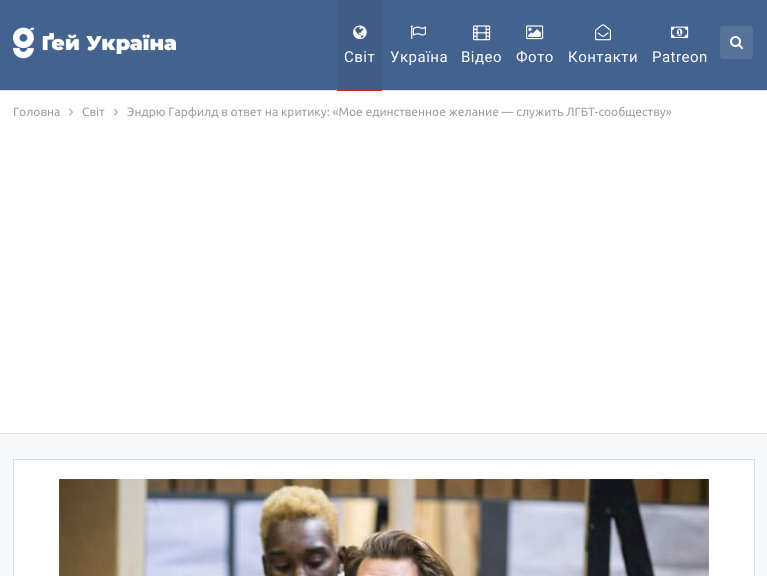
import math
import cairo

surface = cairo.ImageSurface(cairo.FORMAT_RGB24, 767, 576)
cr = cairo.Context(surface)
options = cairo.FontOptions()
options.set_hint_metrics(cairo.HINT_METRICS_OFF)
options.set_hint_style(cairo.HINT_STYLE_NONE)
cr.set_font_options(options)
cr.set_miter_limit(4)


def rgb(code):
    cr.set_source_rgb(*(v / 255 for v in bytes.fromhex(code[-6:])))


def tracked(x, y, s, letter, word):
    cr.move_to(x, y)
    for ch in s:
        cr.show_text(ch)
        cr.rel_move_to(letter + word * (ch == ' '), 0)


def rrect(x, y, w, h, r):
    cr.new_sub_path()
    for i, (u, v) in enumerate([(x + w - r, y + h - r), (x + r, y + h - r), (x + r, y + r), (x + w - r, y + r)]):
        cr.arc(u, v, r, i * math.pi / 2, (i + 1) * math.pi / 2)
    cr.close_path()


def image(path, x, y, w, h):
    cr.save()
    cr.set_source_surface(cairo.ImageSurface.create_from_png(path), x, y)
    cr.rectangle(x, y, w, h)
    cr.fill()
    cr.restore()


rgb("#43628e")
cr.paint()
rgb("#dedede")
cr.rectangle(0, 90, 767, 1)
cr.fill()
image("img/1.png", 13, 27, 163, 32)
rgb("#405d87")
cr.rectangle(337, 0, 46, 90)
cr.fill()
image("img/2.png", 353, 25, 14, 15)
rgb("#d12133")
cr.rectangle(337, 89, 45, 2)
cr.fill()
image("img/3.png", 410, 25, 16, 15)
image("img/4.png", 473, 25, 18, 16)
image("img/5.png", 526, 25, 18, 15)
image("img/6.png", 595, 24, 16, 17)
image("img/7.png", 671, 26, 18, 12)
rgb("#58739a")
rrect(720, 26, 33, 33, 3)
cr.fill()
image("img/8.png", 730, 36, 13, 13)
for x, y, w, h, color in [
    (0, 434, 767, 142, "#f6f8fa"),
    (0, 91, 767, 342, "#ffffff"),
    (0, 433, 767, 1, "#e2e2e2"),
]:
    rgb(color)
    cr.rectangle(x, y, w, h)
    cr.fill()
image("img/9.png", 69, 108, 4, 8)
image("img/9.png", 114, 108, 4, 8)
rgb("#ffffff")
cr.rectangle(13.5, 459.5, 741, 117)
cr.fill_preserve()
rgb("#d2dce3")
cr.set_line_width(1)
cr.stroke()
image("img/10.png", 59, 479, 650, 97)
cr.select_font_face("Roboto")
cr.set_font_size(15)
rgb("#ffffff")
for x, y, s in [
    (344, 62, "Світ"),
    (390, 62, "Україна"),
    (461, 62, "Відео"),
    (516, 62, "Фото"),
    (568, 62, "Контакти"),
    (652, 62, "Patreon"),
]:
    tracked(x, y, s, 0.5, 0)
cr.select_font_face("Ubuntu")
cr.set_font_size(12)
rgb("#9e9e9e")
for x, y, s in [
    (13, 116, "Головна"),
    (82, 116, "Світ"),
    (127, 116, "Эндрю Гарфилд в ответ на критику: «Мое единственное желание — служить ЛГБТ-сообществу»"),
]:
    cr.move_to(x, y)
    cr.show_text(s)
surface.write_to_png("page.png")
